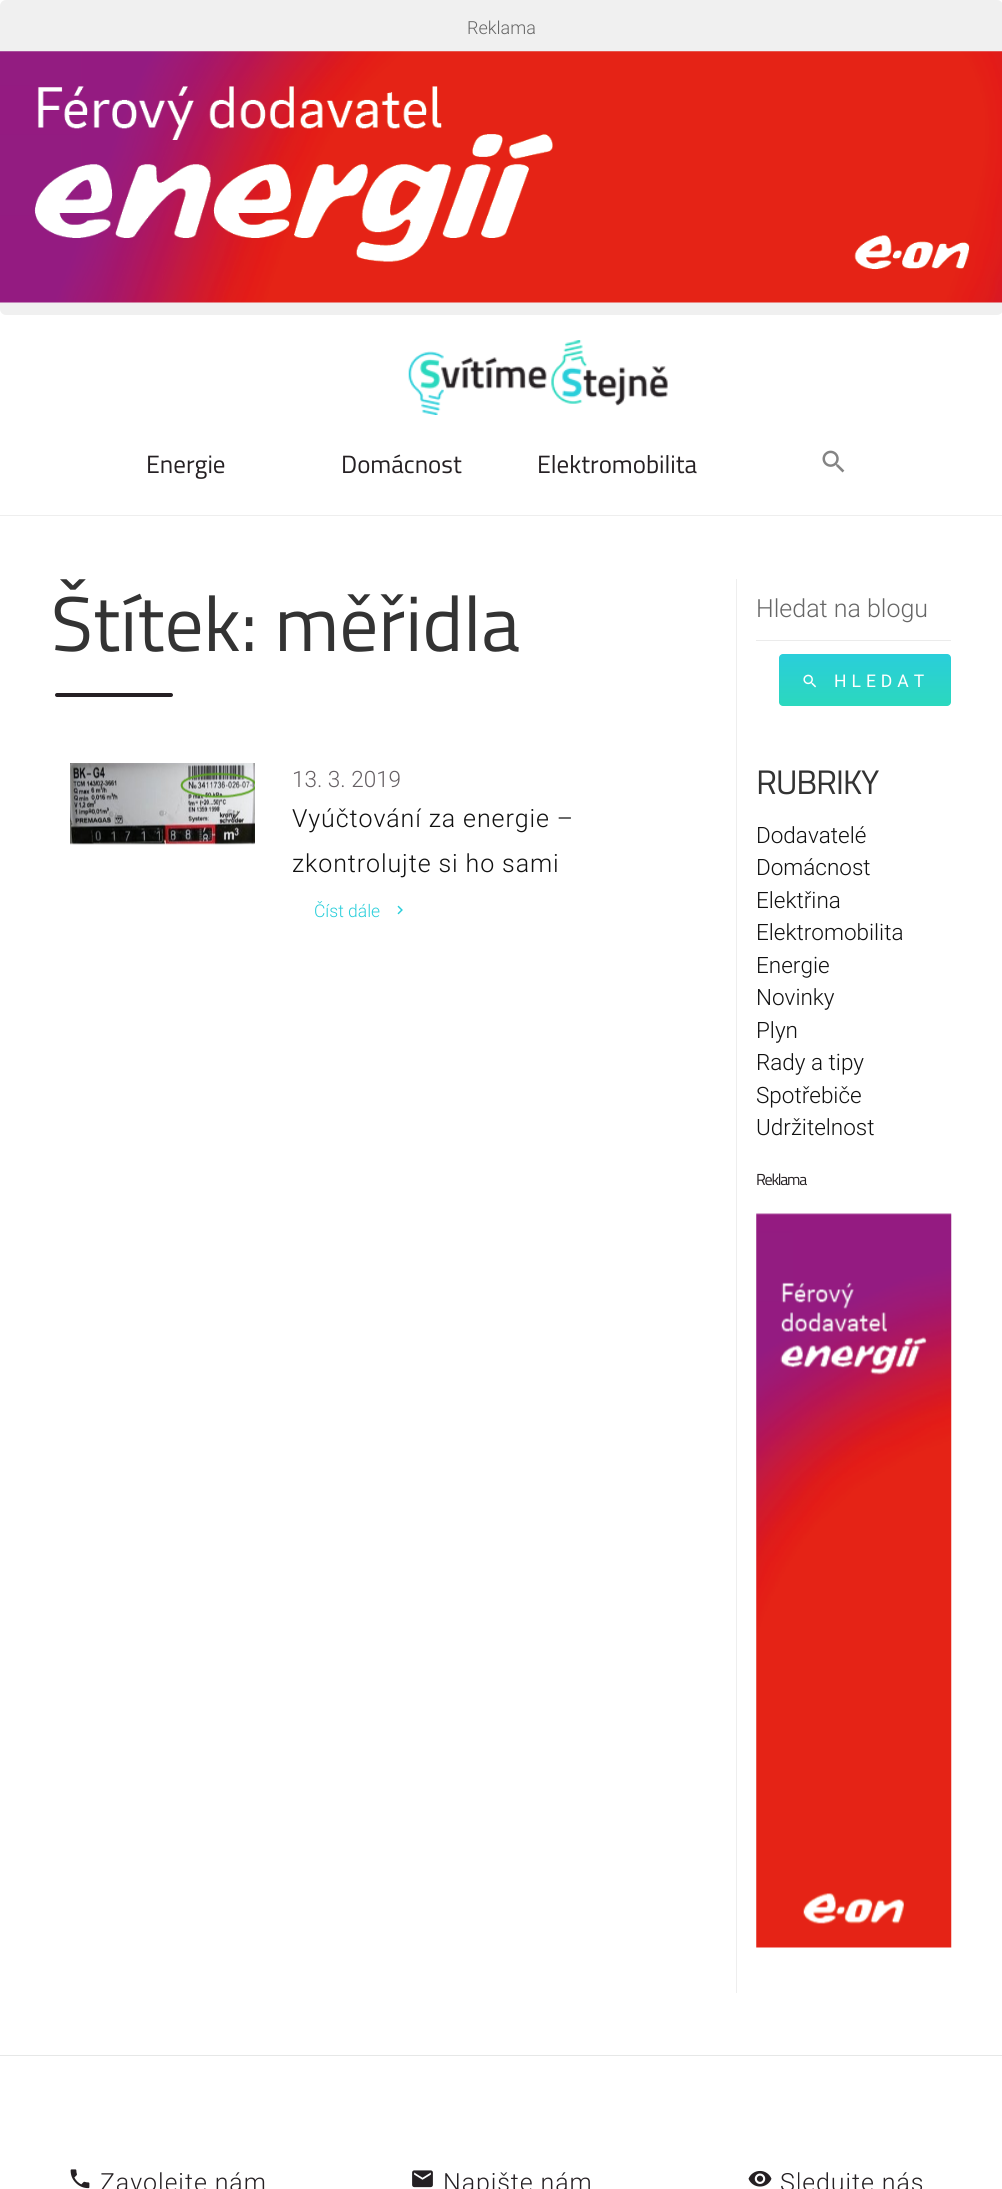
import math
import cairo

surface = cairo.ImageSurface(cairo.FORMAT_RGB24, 1002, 2189)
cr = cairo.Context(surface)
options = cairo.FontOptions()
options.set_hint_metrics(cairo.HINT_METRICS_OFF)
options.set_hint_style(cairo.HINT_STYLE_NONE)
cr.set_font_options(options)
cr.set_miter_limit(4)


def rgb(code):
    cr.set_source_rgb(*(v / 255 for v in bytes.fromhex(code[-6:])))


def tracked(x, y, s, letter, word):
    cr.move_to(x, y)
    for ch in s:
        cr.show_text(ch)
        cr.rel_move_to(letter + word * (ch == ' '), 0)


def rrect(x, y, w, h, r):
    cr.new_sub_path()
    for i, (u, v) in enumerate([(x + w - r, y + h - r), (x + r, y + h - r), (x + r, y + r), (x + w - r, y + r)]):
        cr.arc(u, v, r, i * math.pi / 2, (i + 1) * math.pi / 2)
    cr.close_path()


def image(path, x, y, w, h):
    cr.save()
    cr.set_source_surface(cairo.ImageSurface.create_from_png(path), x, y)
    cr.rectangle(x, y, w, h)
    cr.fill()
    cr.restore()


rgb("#ffffff")
cr.paint()
rgb("#f0f0f0")
rrect(0, 0, 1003, 315, 6)
cr.fill()
image("img/1.png", 0, 51, 1002, 252)
rgb("#eeeeee")
cr.rectangle(0, 515, 1002, 1)
cr.fill()
image("img/2.png", 408, 340, 260, 75)
image("img/3.png", 822, 450, 23, 23)
rgb("#252023")
rrect(55, 693, 118, 4, 2)
cr.fill()
image("img/4.png", 70, 763, 185, 82)
image("img/5.png", 397, 905, 6, 10)
rgb("#eeeeee")
cr.rectangle(736, 579, 1, 1414)
cr.fill()
rgb("#ebebeb")
cr.rectangle(756, 640, 195, 1)
cr.fill()
gradient = cairo.LinearGradient(865, 654, 865, 706)
gradient.add_color_stop_rgba(0, 0.165, 0.808, 0.855, 1)
gradient.add_color_stop_rgba(1, 0.169, 0.847, 0.745, 1)
cr.set_source(gradient)
rrect(779, 654, 172, 52, 4)
cr.fill()
image("img/6.png", 803, 674, 14, 14)
image("img/7.png", 756, 1213, 196, 735)
rgb("#e6e7e7")
cr.rectangle(0, 2055, 1002, 1)
cr.fill()
image("img/8.png", 70, 2169, 20, 20)
image("img/9.png", 412, 2170, 21, 18)
image("img/10.png", 748, 2170, 24, 17)
cr.select_font_face("Roboto Light")
cr.set_font_size(18)
rgb("#666666")
cr.move_to(467, 34)
cr.show_text("Reklama")
cr.select_font_face("Titillium Web")
cr.set_font_size(25)
rgb("#252023")
for x, y, s in [
    (146, 473, "Energie"),
    (341, 473, "Domácnost"),
    (537, 473, "Elektromobilita"),
]:
    cr.move_to(x, y)
    cr.show_text(s)
cr.set_font_size(77.5)
rgb("#333333")
cr.move_to(51, 651)
cr.show_text("Štítek: měřidla")
cr.select_font_face("Roboto Light")
cr.set_font_size(22.5)
rgb("#655f63")
cr.move_to(292, 787)
cr.show_text("13. 3. 2019")
cr.set_font_size(25)
rgb("#111111")
tracked(292, 827, "Vyúčtování za energie –", 0.9, 0)
tracked(292, 872, "zkontrolujte si ho sami", 0.9, 0)
cr.set_font_size(17.5)
rgb("#2aceda")
cr.move_to(314, 917)
cr.show_text("Číst dále")
cr.set_font_size(25)
rgb("#666666")
cr.move_to(756, 617)
cr.show_text("Hledat na blogu")
cr.select_font_face("Roboto")
cr.set_font_size(17.5)
rgb("#ffffff")
tracked(834, 687, "HLEDAT", 5, 0)
cr.select_font_face("Titillium Web")
cr.set_font_size(34)
rgb("#333333")
tracked(756, 794, "RUBRIKY", -1.25, 0)
cr.select_font_face("Roboto Light")
cr.set_font_size(22.5)
rgb("#111111")
for x, y, s in [
    (756, 843, "Dodavatelé"),
    (756, 875, "Domácnost"),
    (756, 908, "Elektřina"),
    (756, 940, "Elektromobilita"),
    (756, 973, "Energie"),
    (756, 1005, "Novinky"),
    (756, 1038, "Plyn"),
    (756, 1070, "Rady a tipy"),
    (756, 1103, "Spotřebiče"),
    (756, 1135, "Udržitelnost"),
]:
    cr.move_to(x, y)
    cr.show_text(s)
cr.select_font_face("Titillium Web")
cr.set_font_size(16)
rgb("#252023")
tracked(756, 1185, "Reklama", -1.25, 0)
cr.select_font_face("Roboto Light")
cr.set_font_size(25)
for x, y, s in [
    (100, 2191, "Zavolejte nám"),
    (443, 2191, "Napište nám"),
    (780, 2191, "Sledujte nás"),
]:
    tracked(x, y, s, 0.9, 0)
surface.write_to_png("page.png")
